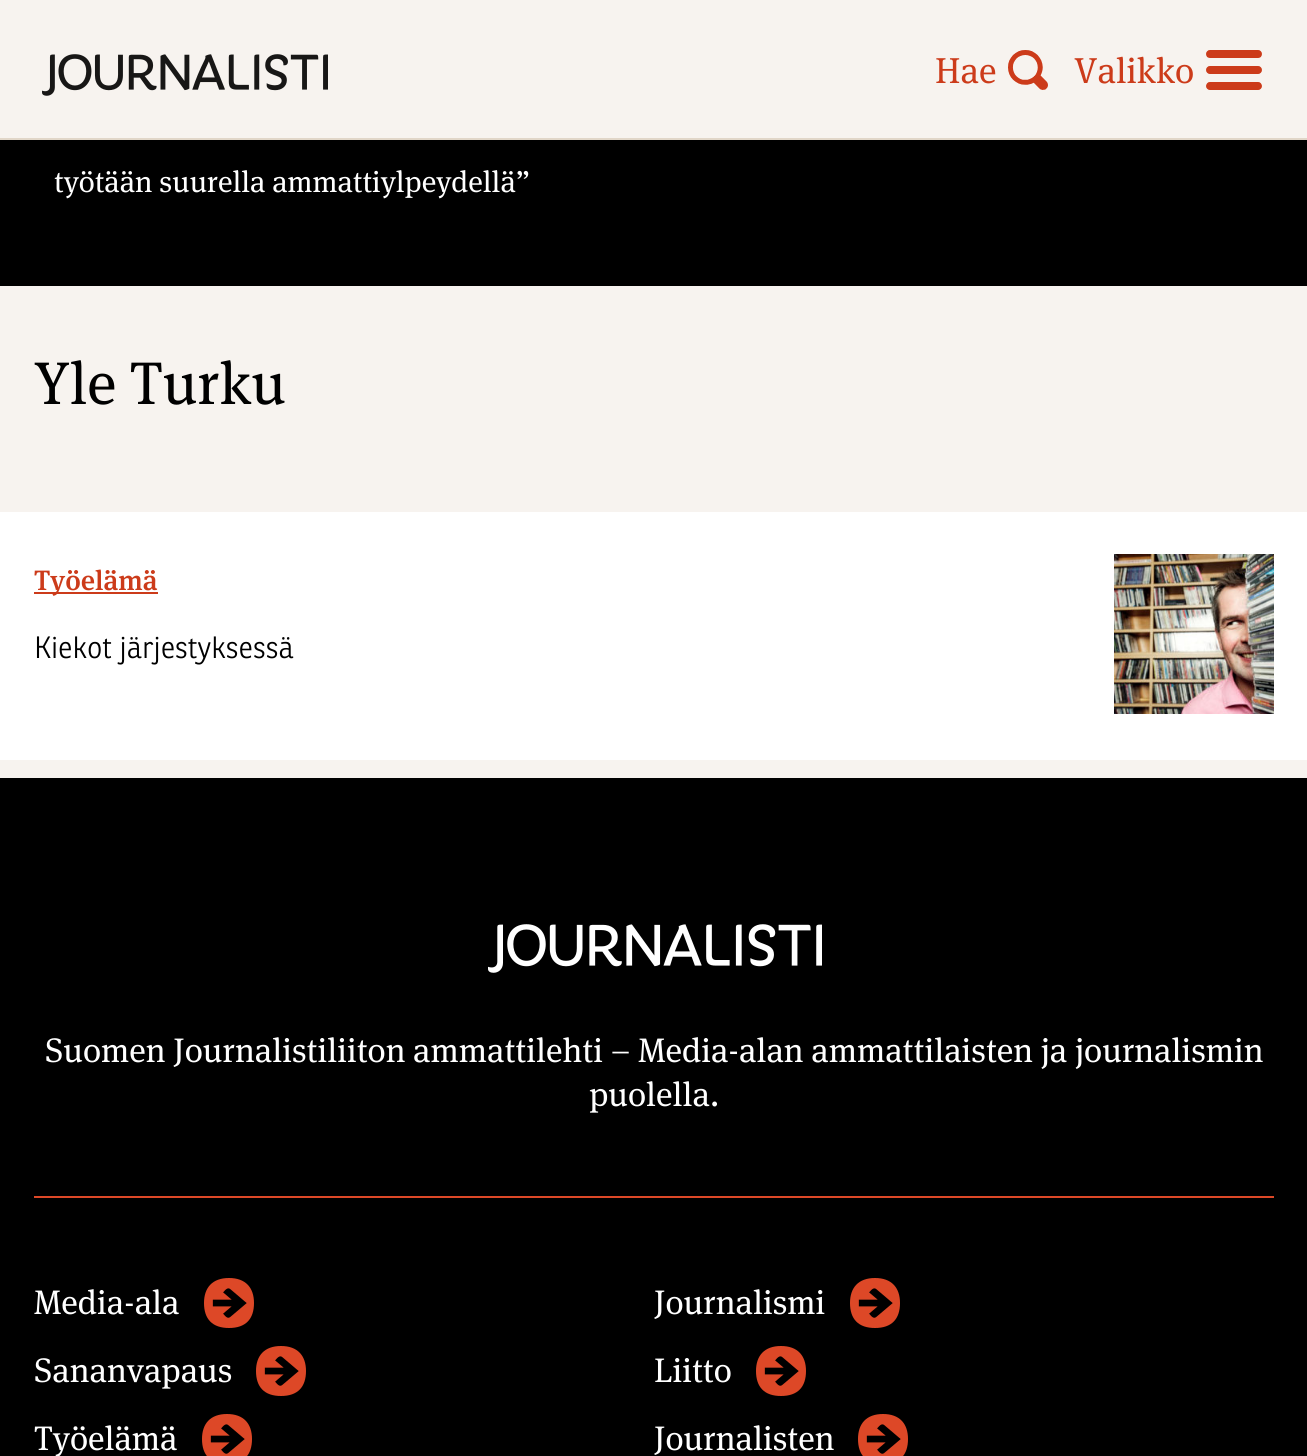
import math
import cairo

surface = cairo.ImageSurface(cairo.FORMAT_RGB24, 1307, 1456)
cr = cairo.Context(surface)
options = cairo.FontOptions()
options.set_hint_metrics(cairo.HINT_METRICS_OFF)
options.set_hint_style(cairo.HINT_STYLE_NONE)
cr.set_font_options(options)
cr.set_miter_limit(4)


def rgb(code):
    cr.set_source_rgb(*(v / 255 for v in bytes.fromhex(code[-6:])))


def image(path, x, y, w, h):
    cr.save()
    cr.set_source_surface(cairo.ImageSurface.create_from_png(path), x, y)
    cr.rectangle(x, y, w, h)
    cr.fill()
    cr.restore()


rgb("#f7f3ef")
cr.paint()
rgb("#e1d6c8")
cr.rectangle(0, 138, 1307, 2)
cr.fill()
image("img/1.png", 42, 54, 286, 42)
image("img/2.png", 1008, 50, 40, 40)
image("img/3.png", 1206, 50, 56, 40)
for x, y, w, h, color in [
    (0, 140, 1307, 146, "#000000"),
    (0, 512, 1307, 248, "#ffffff"),
    (34, 592, 124, 2, "#cc3b1a"),
]:
    rgb(color)
    cr.rectangle(x, y, w, h)
    cr.fill()
image("img/4.png", 1114, 554, 160, 160)
rgb("#000000")
cr.rectangle(0, 778, 1307, 678)
cr.fill()
image("img/5.png", 488, 924, 334, 49)
rgb("#dd4827")
cr.rectangle(34, 1196, 1240, 2)
cr.fill()
image("img/6.png", 204, 1278, 50, 50)
image("img/6.png", 850, 1278, 50, 50)
image("img/6.png", 256, 1346, 50, 50)
image("img/6.png", 756, 1346, 50, 50)
image("img/7.png", 202, 1414, 50, 42)
image("img/7.png", 858, 1414, 50, 42)
cr.select_font_face("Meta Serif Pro")
cr.set_font_size(36)
rgb("#cc3b1a")
cr.move_to(935, 83)
cr.show_text("Hae")
cr.move_to(1074, 83)
cr.show_text("Valikko")
cr.set_font_size(30)
rgb("#ffffff")
cr.move_to(54, 192)
cr.show_text("työtään suurella ammattiylpeydellä”")
cr.set_font_size(60)
rgb("#000000")
cr.move_to(34, 404)
cr.show_text("Yle Turku")
cr.select_font_face("Meta Serif Pro Medium")
cr.set_font_size(28)
rgb("#cc3b1a")
cr.move_to(34, 590)
cr.show_text("Työelämä")
cr.select_font_face("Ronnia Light")
cr.set_font_size(30)
rgb("#000000")
cr.move_to(34, 658)
cr.show_text("Kiekot järjestyksessä")
cr.select_font_face("Meta Serif Pro")
cr.set_font_size(34)
rgb("#ffffff")
for x, y, s in [
    (45, 1062, "Suomen Journalistiliiton ammattilehti – Media-alan ammattilaisten ja journalismin"),
    (589, 1106, "puolella."),
    (34, 1314, "Media-ala"),
    (654, 1314, "Journalismi"),
    (34, 1382, "Sananvapaus"),
    (654, 1382, "Liitto"),
    (34, 1450, "Työelämä"),
    (654, 1450, "Journalisten"),
]:
    cr.move_to(x, y)
    cr.show_text(s)
surface.write_to_png("page.png")
